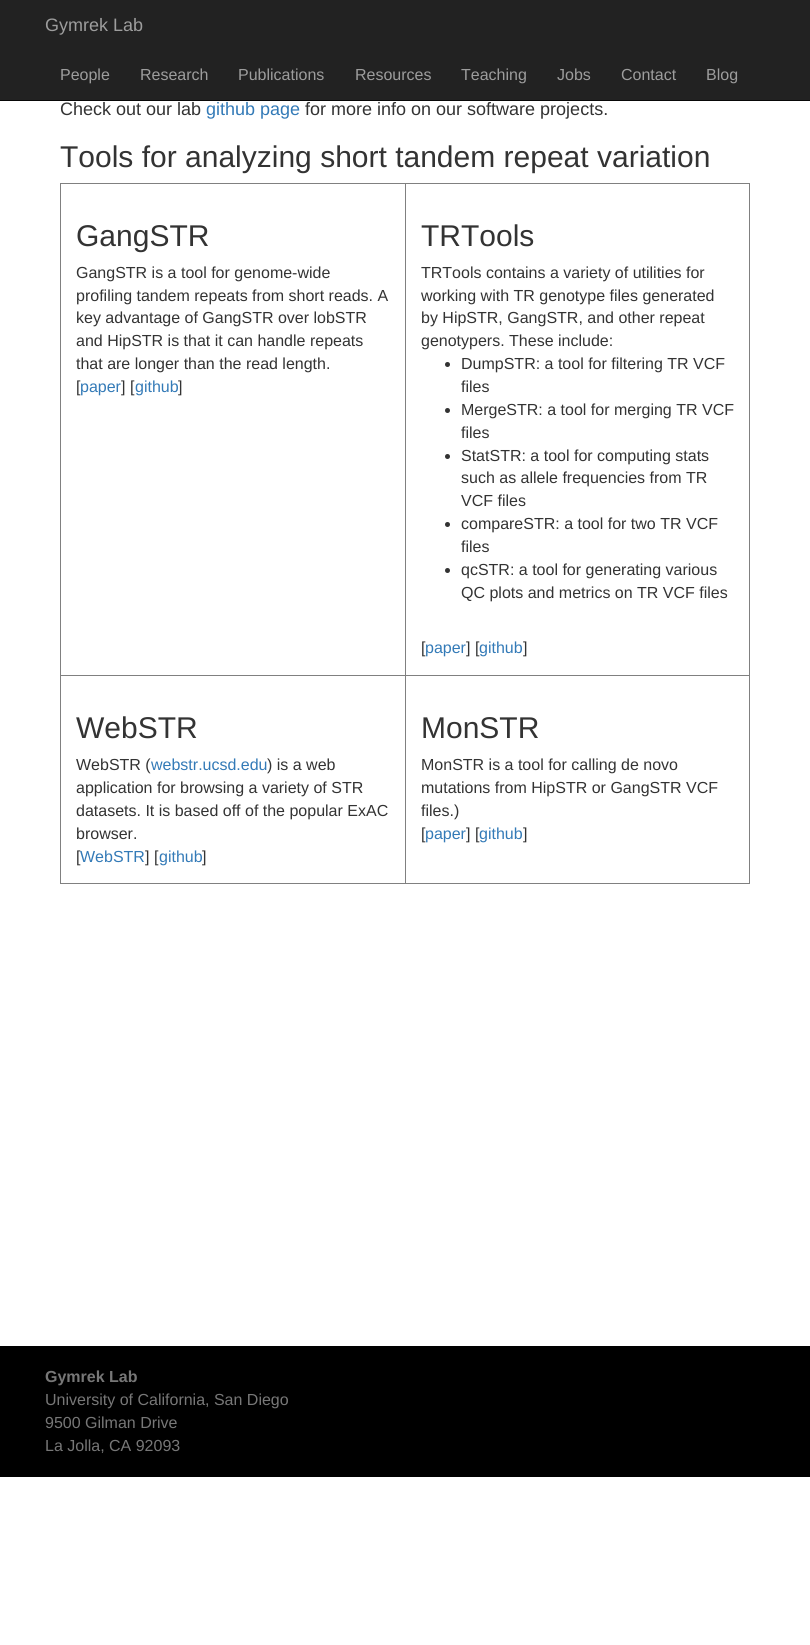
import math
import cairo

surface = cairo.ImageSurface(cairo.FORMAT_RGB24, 810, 1645)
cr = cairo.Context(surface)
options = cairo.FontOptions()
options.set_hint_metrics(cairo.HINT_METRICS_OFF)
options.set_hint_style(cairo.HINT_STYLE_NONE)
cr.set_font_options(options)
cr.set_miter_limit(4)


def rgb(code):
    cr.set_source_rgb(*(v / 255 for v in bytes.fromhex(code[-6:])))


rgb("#ffffff")
cr.paint()
for x, y, w, h, color in [
    (0, 0, 810, 100, "#222222"),
    (0, 100, 810, 1, "#080808"),
    (60, 183, 690, 1, "#808080"),
    (749, 183, 1, 701, "#808080"),
    (60, 883, 690, 1, "#808080"),
    (60, 183, 1, 701, "#808080"),
    (405, 675, 345, 1, "#808080"),
    (405, 675, 1, 209, "#808080"),
    (60, 675, 346, 1, "#808080"),
    (405, 183, 1, 493, "#808080"),
]:
    rgb(color)
    cr.rectangle(x, y, w, h)
    cr.fill()
rgb("#333333")
cr.arc(447.5, 364.5, 2.5, 0, 2 * math.pi)
cr.fill()
cr.arc(447.5, 410.5, 2.5, 0, 2 * math.pi)
cr.fill()
cr.arc(447.5, 456.5, 2.5, 0, 2 * math.pi)
cr.fill()
cr.arc(447.5, 524.5, 2.5, 0, 2 * math.pi)
cr.fill()
cr.arc(447.5, 570.5, 2.5, 0, 2 * math.pi)
cr.fill()
rgb("#000000")
cr.rectangle(0, 1346, 810, 131)
cr.fill()
cr.select_font_face("Liberation Sans")
cr.set_font_size(18)
rgb("#9d9d9d")
cr.move_to(45, 31)
cr.show_text("Gymrek Lab")
cr.set_font_size(16)
for x, y, s in [
    (60, 80, "People"),
    (140, 80, "Research"),
    (238, 80, "Publications"),
    (355, 80, "Resources"),
    (461, 80, "Teaching"),
    (557, 80, "Jobs"),
    (621, 80, "Contact"),
    (706, 80, "Blog"),
]:
    cr.move_to(x, y)
    cr.show_text(s)
cr.set_font_size(18)
rgb("#333333")
cr.move_to(60, 115)
cr.show_text("Check out our lab")
rgb("#337ab7")
cr.move_to(206, 115)
cr.show_text("github page")
rgb("#333333")
cr.move_to(305, 115)
cr.show_text("for more info on our software projects.")
cr.set_font_size(30)
cr.move_to(60, 167)
cr.show_text("Tools for analyzing short tandem repeat variation")
cr.move_to(76, 246)
cr.show_text("GangSTR")
cr.set_font_size(16)
for x, y, s in [
    (76, 278, "GangSTR is a tool for genome-wide"),
    (76, 301, "profiling tandem repeats from short reads. A"),
    (76, 323, "key advantage of GangSTR over lobSTR"),
    (76, 346, "and HipSTR is that it can handle repeats"),
    (76, 369, "that are longer than the read length."),
    (76, 392, "["),
]:
    cr.move_to(x, y)
    cr.show_text(s)
rgb("#337ab7")
cr.move_to(80, 392)
cr.show_text("paper")
rgb("#333333")
cr.move_to(121, 392)
cr.show_text("] [")
rgb("#337ab7")
cr.move_to(135, 392)
cr.show_text("github")
rgb("#333333")
cr.move_to(178, 392)
cr.show_text("]")
cr.set_font_size(30)
cr.move_to(421, 246)
cr.show_text("TRTools")
cr.set_font_size(16)
for x, y, s in [
    (421, 278, "TRTools contains a variety of utilities for"),
    (421, 301, "working with TR genotype files generated"),
    (421, 323, "by HipSTR, GangSTR, and other repeat"),
    (421, 346, "genotypers. These include:"),
    (461, 369, "DumpSTR: a tool for filtering TR VCF"),
    (461, 392, "files"),
    (461, 415, "MergeSTR: a tool for merging TR VCF"),
    (461, 438, "files"),
    (461, 461, "StatSTR: a tool for computing stats"),
    (461, 483, "such as allele frequencies from TR"),
    (461, 506, "VCF files"),
    (461, 529, "compareSTR: a tool for two TR VCF"),
    (461, 552, "files"),
    (461, 575, "qcSTR: a tool for generating various"),
    (461, 598, "QC plots and metrics on TR VCF files"),
    (421, 653, "["),
]:
    cr.move_to(x, y)
    cr.show_text(s)
rgb("#337ab7")
cr.move_to(425, 653)
cr.show_text("paper")
rgb("#333333")
cr.move_to(466, 653)
cr.show_text("] [")
rgb("#337ab7")
cr.move_to(479, 653)
cr.show_text("github")
rgb("#333333")
cr.move_to(523, 653)
cr.show_text("]")
cr.set_font_size(30)
cr.move_to(76, 738)
cr.show_text("WebSTR")
cr.set_font_size(16)
cr.move_to(76, 770)
cr.show_text("WebSTR (")
rgb("#337ab7")
cr.move_to(151, 770)
cr.show_text("webstr.ucsd.edu")
rgb("#333333")
for x, y, s in [
    (267, 770, ") is a web"),
    (76, 793, "application for browsing a variety of STR"),
    (76, 816, "datasets. It is based off of the popular ExAC"),
    (76, 839, "browser."),
    (76, 862, "["),
]:
    cr.move_to(x, y)
    cr.show_text(s)
rgb("#337ab7")
cr.move_to(80, 862)
cr.show_text("WebSTR")
rgb("#333333")
cr.move_to(145, 862)
cr.show_text("] [")
rgb("#337ab7")
cr.move_to(159, 862)
cr.show_text("github")
rgb("#333333")
cr.move_to(202, 862)
cr.show_text("]")
cr.set_font_size(30)
cr.move_to(421, 738)
cr.show_text("MonSTR")
cr.set_font_size(16)
for x, y, s in [
    (421, 770, "MonSTR is a tool for calling de novo"),
    (421, 793, "mutations from HipSTR or GangSTR VCF"),
    (421, 816, "files.)"),
    (421, 839, "["),
]:
    cr.move_to(x, y)
    cr.show_text(s)
rgb("#337ab7")
cr.move_to(425, 839)
cr.show_text("paper")
rgb("#333333")
cr.move_to(466, 839)
cr.show_text("] [")
rgb("#337ab7")
cr.move_to(479, 839)
cr.show_text("github")
rgb("#333333")
cr.move_to(523, 839)
cr.show_text("]")
cr.select_font_face("Liberation Sans", cairo.FONT_SLANT_NORMAL, cairo.FONT_WEIGHT_BOLD)
rgb("#777777")
cr.move_to(45, 1382)
cr.show_text("Gymrek Lab")
cr.select_font_face("Liberation Sans")
for x, y, s in [
    (45, 1405, "University of California, San Diego"),
    (45, 1428, "9500 Gilman Drive"),
    (45, 1451, "La Jolla, CA 92093"),
]:
    cr.move_to(x, y)
    cr.show_text(s)
surface.write_to_png("page.png")
